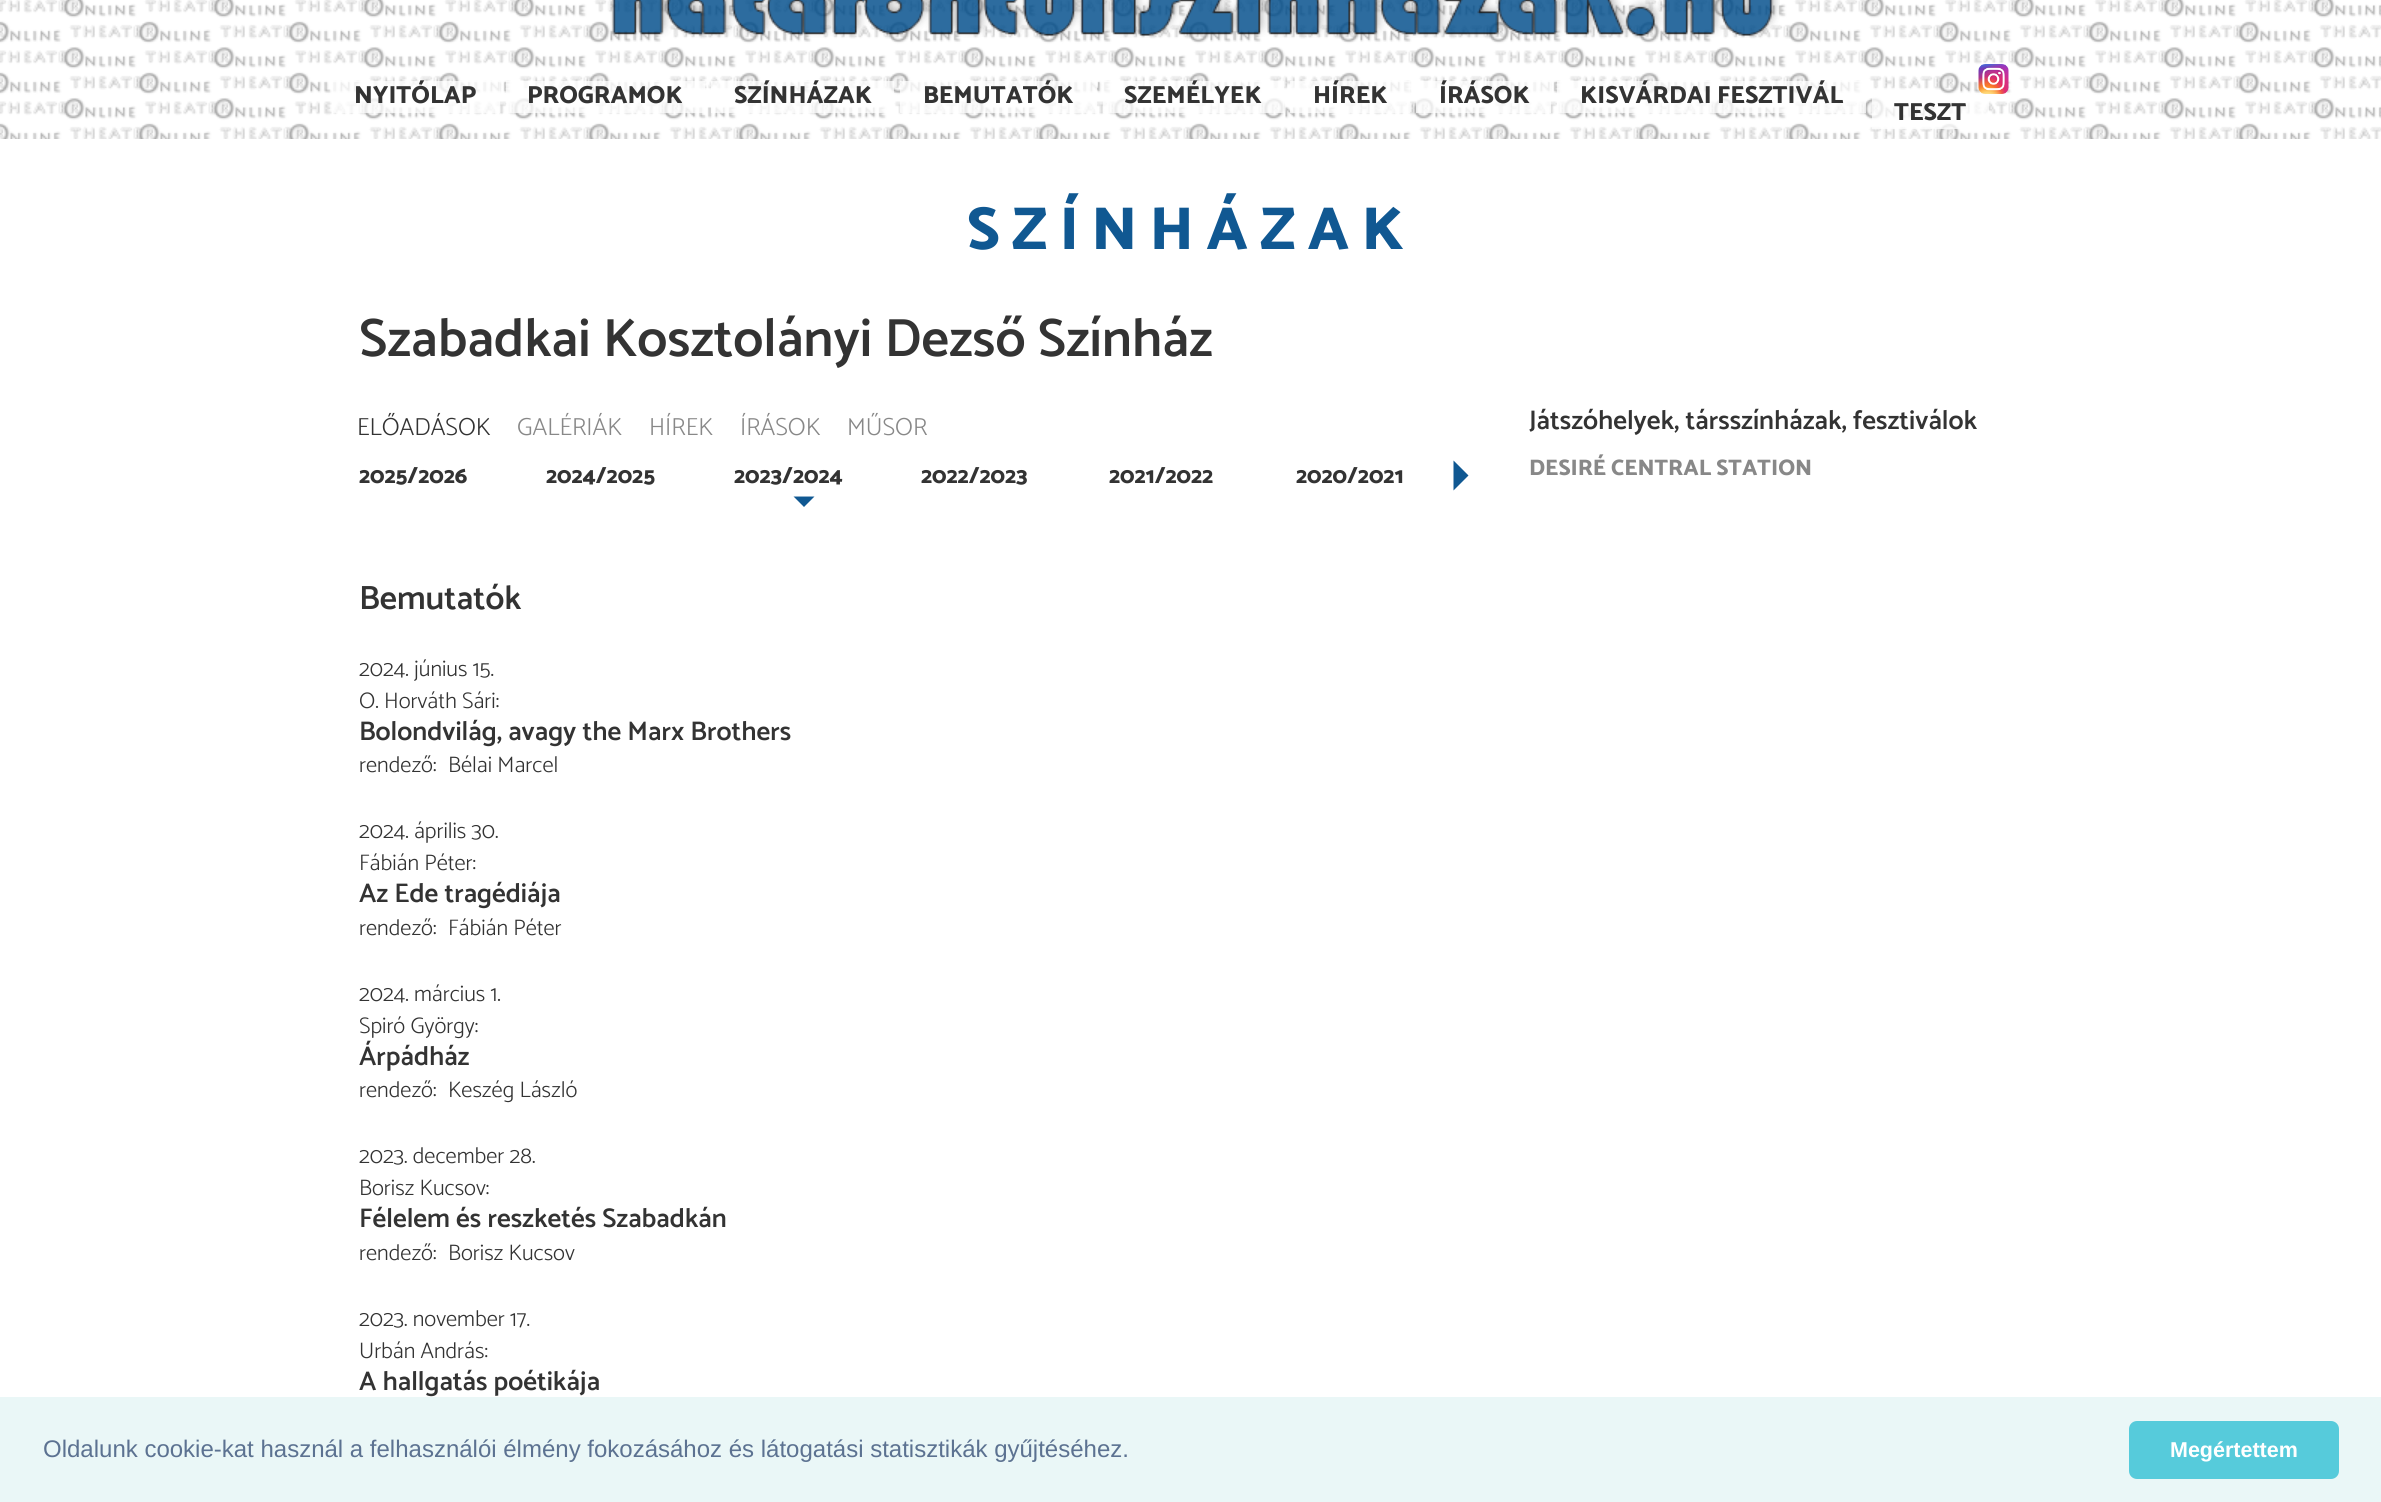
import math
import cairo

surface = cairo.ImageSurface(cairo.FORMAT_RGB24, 2381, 1502)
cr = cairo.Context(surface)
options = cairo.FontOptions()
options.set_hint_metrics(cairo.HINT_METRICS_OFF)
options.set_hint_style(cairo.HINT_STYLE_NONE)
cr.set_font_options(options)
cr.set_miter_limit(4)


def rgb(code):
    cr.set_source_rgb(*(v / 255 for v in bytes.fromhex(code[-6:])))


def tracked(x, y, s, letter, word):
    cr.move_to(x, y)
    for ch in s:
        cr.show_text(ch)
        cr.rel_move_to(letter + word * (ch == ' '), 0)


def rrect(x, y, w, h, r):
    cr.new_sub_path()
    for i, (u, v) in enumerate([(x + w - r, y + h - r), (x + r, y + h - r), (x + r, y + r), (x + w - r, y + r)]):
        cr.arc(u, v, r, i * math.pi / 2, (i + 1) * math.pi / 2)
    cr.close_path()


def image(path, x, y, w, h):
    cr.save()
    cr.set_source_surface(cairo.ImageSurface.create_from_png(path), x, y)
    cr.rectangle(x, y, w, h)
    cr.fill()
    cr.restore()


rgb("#ffffff")
cr.paint()
image("img/1.png", 0, 0, 2381, 139)
image("img/2.png", 610, 0, 1170, 38)
cr.set_source_rgba(1, 1, 1, 0.75)
cr.rectangle(332, 81, 168, 32)
cr.fill()
cr.rectangle(506, 81, 199, 32)
cr.fill()
cr.rectangle(711, 81, 183, 32)
cr.fill()
cr.rectangle(900, 81, 197, 32)
cr.fill()
cr.rectangle(1103, 81, 181, 32)
cr.fill()
cr.rectangle(1290, 81, 120, 32)
cr.fill()
cr.rectangle(1416, 81, 135, 32)
cr.fill()
cr.rectangle(1557, 81, 309, 32)
cr.fill()
cr.rectangle(1872, 98, 117, 31)
cr.fill()
image("img/3.png", 1978, 64, 31, 30)
rgb("#105892")
cr.new_path()
cr.move_to(793.5, 496.5)
cr.line_to(814.5, 496.5)
cr.line_to(804, 507)
cr.close_path()
cr.fill()
cr.new_path()
cr.move_to(1453.5, 490.5)
cr.line_to(1453.5, 460.5)
cr.line_to(1468.5, 475.5)
cr.close_path()
cr.fill()
rgb("#eaf7f7")
cr.rectangle(0, 1397, 2381, 105)
cr.fill()
rgb("#56cbdb")
rrect(2129, 1421, 210, 58, 8)
cr.fill()
cr.select_font_face("Catamaran ExtraBold")
cr.set_font_size(24.75)
rgb("#333333")
for x, y, s in [
    (354, 103, "NYITÓLAP"),
    (527, 103, "PROGRAMOK"),
    (734, 103, "SZÍNHÁZAK"),
    (923, 103, "BEMUTATÓK"),
    (1124, 103, "SZEMÉLYEK"),
    (1313, 103, "HÍREK"),
    (1439, 103, "ÍRÁSOK"),
    (1580, 103, "KISVÁRDAI FESZTIVÁL"),
    (1894, 120, "TESZT"),
]:
    cr.move_to(x, y)
    cr.show_text(s)
cr.set_font_size(60.75)
rgb("#105892")
tracked(967, 249, "SZÍNHÁZAK", 12.25, 0)
cr.select_font_face("Catamaran SemiBold")
cr.set_font_size(54)
rgb("#333333")
cr.move_to(359, 356)
cr.show_text("Szabadkai Kosztolányi Dezső Színház")
cr.select_font_face("Catamaran Light")
cr.set_font_size(24.75)
cr.move_to(357, 435)
cr.show_text("ELŐADÁSOK")
rgb("#888888")
for x, y, s in [
    (517, 435, "GALÉRIÁK"),
    (649, 435, "HÍREK"),
    (740, 435, "ÍRÁSOK"),
    (847, 435, "MŰSOR"),
]:
    cr.move_to(x, y)
    cr.show_text(s)
cr.select_font_face("Catamaran ExtraBold")
cr.set_font_size(22.5)
rgb("#333333")
for x, y, s in [
    (359, 483, "2025/2026"),
    (546, 483, "2024/2025"),
    (734, 483, "2023/2024"),
    (921, 483, "2022/2023"),
    (1109, 483, "2021/2022"),
    (1296, 483, "2020/2021"),
]:
    cr.move_to(x, y)
    cr.show_text(s)
cr.select_font_face("Catamaran SemiBold")
cr.set_font_size(33.75)
cr.move_to(359, 609)
cr.show_text("Bemutatók")
cr.select_font_face("Catamaran Light")
cr.set_font_size(22.5)
cr.move_to(359, 676)
cr.show_text("2024. június 15.")
cr.move_to(359, 708)
cr.show_text("O. Horváth Sári:")
cr.select_font_face("Catamaran SemiBold")
cr.set_font_size(27)
cr.move_to(359, 740)
cr.show_text("Bolondvilág, avagy the Marx Brothers")
cr.select_font_face("Catamaran Light")
cr.set_font_size(22.5)
for x, y, s in [
    (359, 772, "rendező:"),
    (448, 772, "Bélai Marcel"),
    (359, 838, "2024. április 30."),
    (359, 870, "Fábián Péter:"),
]:
    cr.move_to(x, y)
    cr.show_text(s)
cr.select_font_face("Catamaran SemiBold")
cr.set_font_size(27)
cr.move_to(359, 902)
cr.show_text("Az Ede tragédiája")
cr.select_font_face("Catamaran Light")
cr.set_font_size(22.5)
for x, y, s in [
    (359, 935, "rendező:"),
    (448, 935, "Fábián Péter"),
    (359, 1001, "2024. március 1."),
    (359, 1033, "Spiró György:"),
]:
    cr.move_to(x, y)
    cr.show_text(s)
cr.select_font_face("Catamaran SemiBold")
cr.set_font_size(27)
cr.move_to(359, 1065)
cr.show_text("Árpádház")
cr.select_font_face("Catamaran Light")
cr.set_font_size(22.5)
for x, y, s in [
    (359, 1097, "rendező:"),
    (448, 1097, "Keszég László"),
    (359, 1163, "2023. december 28."),
    (359, 1195, "Borisz Kucsov:"),
]:
    cr.move_to(x, y)
    cr.show_text(s)
cr.select_font_face("Catamaran SemiBold")
cr.set_font_size(27)
cr.move_to(359, 1227)
cr.show_text("Félelem és reszketés Szabadkán")
cr.select_font_face("Catamaran Light")
cr.set_font_size(22.5)
for x, y, s in [
    (359, 1260, "rendező:"),
    (448, 1260, "Borisz Kucsov"),
    (359, 1326, "2023. november 17."),
    (359, 1358, "Urbán András:"),
]:
    cr.move_to(x, y)
    cr.show_text(s)
cr.select_font_face("Catamaran SemiBold")
cr.set_font_size(27)
cr.move_to(359, 1390)
cr.show_text("A hallgatás poétikája")
cr.move_to(1529, 429)
cr.show_text("Játszóhelyek, társszínházak, fesztiválok")
cr.select_font_face("Catamaran ExtraBold")
cr.set_font_size(22.5)
rgb("#888888")
cr.move_to(1529, 475)
cr.show_text("DESIRÉ CENTRAL STATION")
cr.select_font_face("Liberation Sans")
cr.set_font_size(24)
rgb("#5c7291")
cr.move_to(43, 1457)
cr.show_text("Oldalunk cookie-kat használ a felhasználói élmény fokozásához és látogatási statisztikák gyűjtéséhez.")
cr.select_font_face("Liberation Sans", cairo.FONT_SLANT_NORMAL, cairo.FONT_WEIGHT_BOLD)
cr.set_font_size(21.5)
rgb("#ffffff")
cr.move_to(2170, 1457)
cr.show_text("Megértettem")
surface.write_to_png("page.png")
